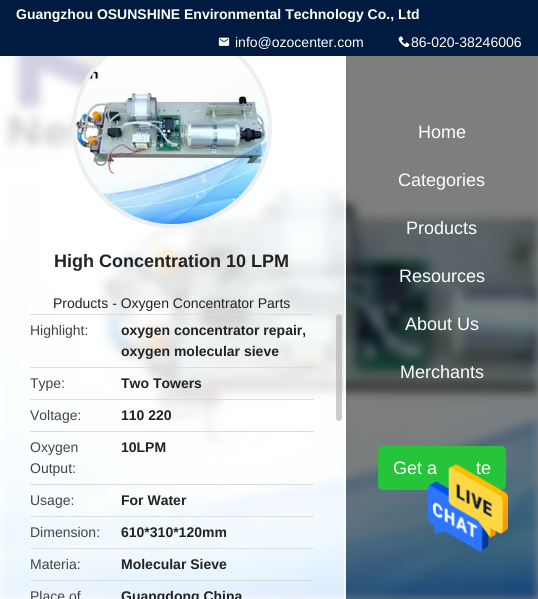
import math
import cairo

surface = cairo.ImageSurface(cairo.FORMAT_RGB24, 538, 599)
cr = cairo.Context(surface)
options = cairo.FontOptions()
options.set_hint_metrics(cairo.HINT_METRICS_OFF)
options.set_hint_style(cairo.HINT_STYLE_NONE)
cr.set_font_options(options)
cr.set_miter_limit(4)


def rgb(code):
    cr.set_source_rgb(*(v / 255 for v in bytes.fromhex(code[-6:])))


def rrect(x, y, w, h, r):
    cr.new_sub_path()
    for i, (u, v) in enumerate([(x + w - r, y + h - r), (x + r, y + h - r), (x + r, y + r), (x + w - r, y + r)]):
        cr.arc(u, v, r, i * math.pi / 2, (i + 1) * math.pi / 2)
    cr.close_path()


def image(path, x, y, w, h):
    cr.save()
    cr.set_source_surface(cairo.ImageSurface.create_from_png(path), x, y)
    cr.rectangle(x, y, w, h)
    cr.fill()
    cr.restore()


rgb("#ffffff")
cr.paint()
image("img/3.png", 0, 56, 538, 543)
cr.set_source_rgba(1, 1, 1, 0.8)
cr.rectangle(0, 56, 346, 543)
cr.fill()
cr.arc(172, 128, 98, 0, 2 * math.pi)
rgb("#eeeeee")
cr.set_line_width(4)
cr.stroke()
rgb("#001b3f")
cr.rectangle(0, 0, 538, 56)
cr.fill()
image("img/1.png", 218, 37, 12, 9)
image("img/2.png", 398, 36, 12, 12)
cr.set_source_rgba(1, 1, 1, 0.6)
cr.rectangle(344, 197, 2, 402)
cr.fill()
image("img/4.png", 76, 56, 192, 168)
for x, y, w, h, color in [
    (30, 314, 284, 1, "#dddddd"),
    (30, 367, 284, 1, "#dddddd"),
    (30, 399, 284, 1, "#dddddd"),
    (30, 431, 284, 1, "#dddddd"),
    (30, 484, 284, 1, "#dddddd"),
    (30, 516, 284, 1, "#dddddd"),
    (30, 548, 284, 1, "#dddddd"),
    (30, 580, 284, 1, "#dddddd"),
]:
    rgb(color)
    cr.rectangle(x, y, w, h)
    cr.fill()
cr.set_source_rgba(0.667, 0.667, 0.667, 0.6)
rrect(336, 314, 6, 107, 3)
cr.fill()
cr.set_source_rgba(0, 0, 0, 0.5)
cr.rectangle(346, 56, 192, 543)
cr.fill()
rgb("#26c43a")
rrect(378, 446, 128, 44, 5)
cr.fill()
cr.select_font_face("Liberation Sans", cairo.FONT_SLANT_NORMAL, cairo.FONT_WEIGHT_BOLD)
cr.set_font_size(14)
rgb("#ffffff")
cr.move_to(16, 19)
cr.show_text("Guangzhou OSUNSHINE Environmental Technology Co., Ltd")
cr.select_font_face("Liberation Sans")
cr.move_to(235, 47)
cr.show_text("info@ozocenter.com")
cr.move_to(411, 47)
cr.show_text("86-020-38246006")
cr.select_font_face("Liberation Sans", cairo.FONT_SLANT_NORMAL, cairo.FONT_WEIGHT_BOLD)
cr.set_font_size(18)
rgb("#222222")
cr.move_to(54, 267)
cr.show_text("High Concentration 10 LPM")
cr.select_font_face("Liberation Sans")
cr.set_font_size(14)
cr.move_to(53, 308)
cr.show_text("Products - Oxygen Concentrator Parts")
rgb("#444444")
cr.move_to(30, 335)
cr.show_text("Highlight:")
cr.select_font_face("Liberation Sans", cairo.FONT_SLANT_NORMAL, cairo.FONT_WEIGHT_BOLD)
rgb("#222222")
cr.move_to(121, 335)
cr.show_text("oxygen concentrator repair,")
cr.move_to(121, 356)
cr.show_text("oxygen molecular sieve")
cr.select_font_face("Liberation Sans")
rgb("#444444")
cr.move_to(30, 388)
cr.show_text("Type:")
cr.select_font_face("Liberation Sans", cairo.FONT_SLANT_NORMAL, cairo.FONT_WEIGHT_BOLD)
rgb("#222222")
cr.move_to(121, 388)
cr.show_text("Two Towers")
cr.select_font_face("Liberation Sans")
rgb("#444444")
cr.move_to(30, 420)
cr.show_text("Voltage:")
cr.select_font_face("Liberation Sans", cairo.FONT_SLANT_NORMAL, cairo.FONT_WEIGHT_BOLD)
rgb("#222222")
cr.move_to(121, 420)
cr.show_text("110 220")
cr.select_font_face("Liberation Sans")
rgb("#444444")
cr.move_to(30, 452)
cr.show_text("Oxygen")
cr.move_to(30, 473)
cr.show_text("Output:")
cr.select_font_face("Liberation Sans", cairo.FONT_SLANT_NORMAL, cairo.FONT_WEIGHT_BOLD)
rgb("#222222")
cr.move_to(121, 452)
cr.show_text("10LPM")
cr.select_font_face("Liberation Sans")
rgb("#444444")
cr.move_to(30, 505)
cr.show_text("Usage:")
cr.select_font_face("Liberation Sans", cairo.FONT_SLANT_NORMAL, cairo.FONT_WEIGHT_BOLD)
rgb("#222222")
cr.move_to(121, 505)
cr.show_text("For Water")
cr.select_font_face("Liberation Sans")
rgb("#444444")
cr.move_to(30, 537)
cr.show_text("Dimension:")
cr.select_font_face("Liberation Sans", cairo.FONT_SLANT_NORMAL, cairo.FONT_WEIGHT_BOLD)
rgb("#222222")
cr.move_to(121, 537)
cr.show_text("610*310*120mm")
cr.select_font_face("Liberation Sans")
rgb("#444444")
cr.move_to(30, 569)
cr.show_text("Materia:")
cr.select_font_face("Liberation Sans", cairo.FONT_SLANT_NORMAL, cairo.FONT_WEIGHT_BOLD)
rgb("#222222")
cr.move_to(121, 569)
cr.show_text("Molecular Sieve")
cr.select_font_face("Liberation Sans")
rgb("#444444")
cr.move_to(30, 601)
cr.show_text("Place of")
cr.select_font_face("Liberation Sans", cairo.FONT_SLANT_NORMAL, cairo.FONT_WEIGHT_BOLD)
rgb("#222222")
cr.move_to(121, 601)
cr.show_text("Guangdong China")
cr.select_font_face("Liberation Sans")
cr.set_font_size(18)
rgb("#ffffff")
for x, y, s in [
    (418, 138, "Home"),
    (398, 186, "Categories"),
    (406, 234, "Products"),
    (399, 282, "Resources"),
    (405, 330, "About Us"),
    (400, 378, "Merchants"),
    (393, 474, "Get a"),
    (476, 474, "te"),
]:
    cr.move_to(x, y)
    cr.show_text(s)
image("img/5.png", 428, 464, 80, 88)
surface.write_to_png("page.png")
